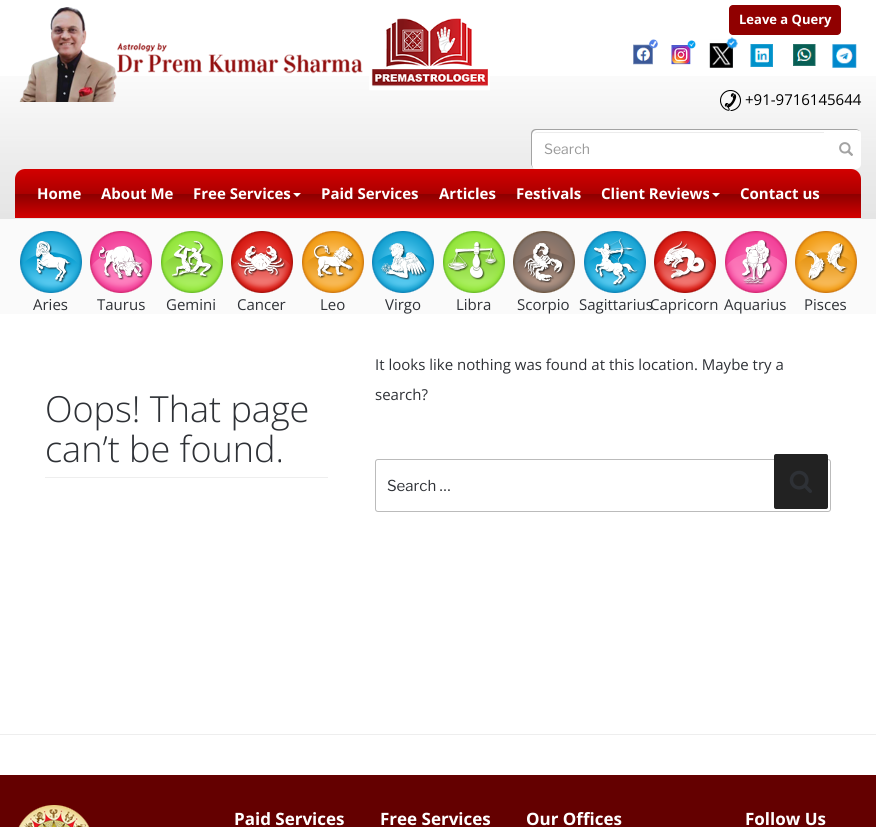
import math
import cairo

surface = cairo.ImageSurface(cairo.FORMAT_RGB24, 876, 827)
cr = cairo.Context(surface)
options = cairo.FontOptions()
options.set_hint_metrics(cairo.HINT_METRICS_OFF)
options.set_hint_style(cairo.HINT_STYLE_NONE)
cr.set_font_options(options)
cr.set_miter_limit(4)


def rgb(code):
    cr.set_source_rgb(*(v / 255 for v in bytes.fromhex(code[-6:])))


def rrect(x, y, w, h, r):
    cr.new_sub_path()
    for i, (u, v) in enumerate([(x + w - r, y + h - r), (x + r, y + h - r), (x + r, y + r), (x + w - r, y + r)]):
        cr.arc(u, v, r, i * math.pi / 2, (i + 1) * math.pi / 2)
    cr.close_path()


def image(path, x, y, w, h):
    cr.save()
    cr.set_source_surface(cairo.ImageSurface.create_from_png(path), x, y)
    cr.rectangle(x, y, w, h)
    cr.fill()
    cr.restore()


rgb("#ffffff")
cr.paint()
rgb("#fafafa")
cr.rectangle(0, 219, 876, 95)
cr.fill()
image("img/1.png", 0, 76, 876, 143)
image("img/2.png", 19, 7, 471, 95)
rgb("#900000")
rrect(729, 5, 112, 30, 4)
cr.fill()
image("img/3.png", 633, 39, 25, 26)
image("img/4.png", 671, 40, 25, 25)
image("img/5.png", 709, 37, 29, 31)
image("img/6.png", 750, 44, 23, 23)
image("img/7.png", 793, 44, 23, 22)
image("img/8.png", 832, 44, 25, 24)
image("img/9.png", 720, 90, 21, 21)
rgb("#ffffff")
rrect(531, 129, 330, 40, 5)
cr.fill()
rgb("#a3a3a3")
cr.new_path()
cr.move_to(537, 130)
cr.line_to(857, 130)
cr.line_to(860, 131)
cr.curve_to(859, 130, 857, 129, 856, 129)
cr.line_to(536, 129)
cr.curve_to(533, 129, 531, 131, 531, 134)
cr.line_to(531, 164)
cr.curve_to(531, 165, 532, 167, 533, 168)
cr.line_to(532, 165)
cr.line_to(532, 135)
cr.curve_to(532, 132, 534, 130, 537, 130)
cr.close_path()
cr.fill()
rgb("#ececec")
cr.new_path()
cr.move_to(537, 133)
cr.line_to(824, 133)
cr.line_to(824, 132)
cr.line_to(537, 132)
cr.curve_to(535, 132, 534, 134, 534, 136)
cr.curve_to(534, 134, 535, 133, 537, 133)
cr.close_path()
cr.fill()
image("img/10.png", 839, 142, 14, 14)
gradient = cairo.LinearGradient(438, 169, 438, 218)
gradient.add_color_stop_rgba(0, 0.827, 0, 0, 1)
gradient.add_color_stop_rgba(0.5, 0.675, 0, 0, 1)
gradient.add_color_stop_rgba(0.51, 0.549, 0, 0, 1)
gradient.add_color_stop_rgba(1, 0.827, 0, 0, 1)
cr.set_source(gradient)
cr.new_path()
cr.move_to(25, 169)
cr.line_to(851, 169)
cr.curve_to(856.5, 169, 861, 173.5, 861, 179)
cr.line_to(861, 218)
cr.line_to(15, 218)
cr.line_to(15, 179)
cr.curve_to(15, 173.5, 19.5, 169, 25, 169)
cr.close_path()
cr.fill()
rgb("#ffffff")
cr.new_path()
cr.move_to(293, 193)
cr.line_to(301, 193)
cr.line_to(297, 197)
cr.close_path()
cr.fill()
cr.new_path()
cr.move_to(712, 193)
cr.line_to(720, 193)
cr.line_to(716, 197)
cr.close_path()
cr.fill()
image("img/11.png", 20, 231, 62, 62)
image("img/12.png", 90, 231, 62, 62)
image("img/13.png", 161, 231, 62, 62)
image("img/14.png", 231, 231, 62, 62)
image("img/15.png", 302, 231, 62, 62)
image("img/16.png", 372, 231, 62, 62)
image("img/17.png", 443, 231, 62, 62)
image("img/18.png", 513, 231, 62, 62)
image("img/19.png", 584, 231, 62, 62)
image("img/20.png", 654, 231, 62, 62)
image("img/21.png", 725, 231, 62, 62)
image("img/22.png", 795, 231, 62, 62)
rgb("#eeeeee")
cr.rectangle(45, 477, 283, 1)
cr.fill()
rrect(375.5, 459.5, 455, 52, 2.5)
rgb("#bbbbbb")
cr.set_line_width(1)
cr.stroke()
rgb("#222222")
rrect(774, 454, 54, 55, 2)
cr.fill()
image("img/23.png", 789, 470, 23, 23)
rgb("#eeeeee")
cr.rectangle(0, 734, 876, 1)
cr.fill()
rgb("#640000")
cr.rectangle(0, 775, 876, 52)
cr.fill()
image("img/24.png", 18, 805, 72, 22)
cr.select_font_face("Open Sans", cairo.FONT_SLANT_NORMAL, cairo.FONT_WEIGHT_BOLD)
cr.set_font_size(13)
rgb("#ffffff")
cr.move_to(739, 24)
cr.show_text("Leave a Query")
cr.select_font_face("Open Sans")
cr.set_font_size(15)
rgb("#000000")
cr.move_to(745, 105)
cr.show_text("+91-9716145644")
cr.select_font_face("Libre Franklin")
cr.set_font_size(14)
rgb("#999999")
cr.move_to(544, 154)
cr.show_text("Search")
cr.select_font_face("Open Sans", cairo.FONT_SLANT_NORMAL, cairo.FONT_WEIGHT_BOLD)
cr.set_font_size(15)
rgb("#ffffff")
for x, y, s in [
    (37, 199, "Home"),
    (101, 199, "About Me"),
    (193, 199, "Free Services"),
    (321, 199, "Paid Services"),
    (439, 199, "Articles"),
    (516, 199, "Festivals"),
    (601, 199, "Client Reviews"),
    (740, 199, "Contact us"),
]:
    cr.move_to(x, y)
    cr.show_text(s)
cr.select_font_face("Open Sans")
rgb("#2e3136")
for x, y, s in [
    (33, 310, "Aries"),
    (97, 310, "Taurus"),
    (166, 310, "Gemini"),
    (237, 310, "Cancer"),
    (320, 310, "Leo"),
    (385, 310, "Virgo"),
    (456, 310, "Libra"),
    (517, 310, "Scorpio"),
    (579, 310, "Sagittarius"),
    (650, 310, "Capricorn"),
    (724, 310, "Aquarius"),
    (804, 310, "Pisces"),
]:
    cr.move_to(x, y)
    cr.show_text(s)
cr.select_font_face("Open Sans Light")
cr.set_font_size(36)
cr.move_to(45, 422)
cr.show_text("Oops! That page")
cr.move_to(45, 462)
cr.show_text("can’t be found.")
cr.select_font_face("Open Sans")
cr.set_font_size(15)
cr.move_to(375, 370)
cr.show_text("It looks like nothing was found at this location. Maybe try a")
cr.move_to(375, 400)
cr.show_text("search?")
cr.select_font_face("Libre Franklin")
cr.move_to(387, 491)
cr.show_text("Search …")
cr.select_font_face("Open Sans", cairo.FONT_SLANT_NORMAL, cairo.FONT_WEIGHT_BOLD)
cr.set_font_size(17)
rgb("#ffffff")
for x, y, s in [
    (234, 825, "Paid Services"),
    (380, 825, "Free Services"),
    (526, 825, "Our Offices"),
    (745, 825, "Follow Us"),
]:
    cr.move_to(x, y)
    cr.show_text(s)
surface.write_to_png("page.png")
